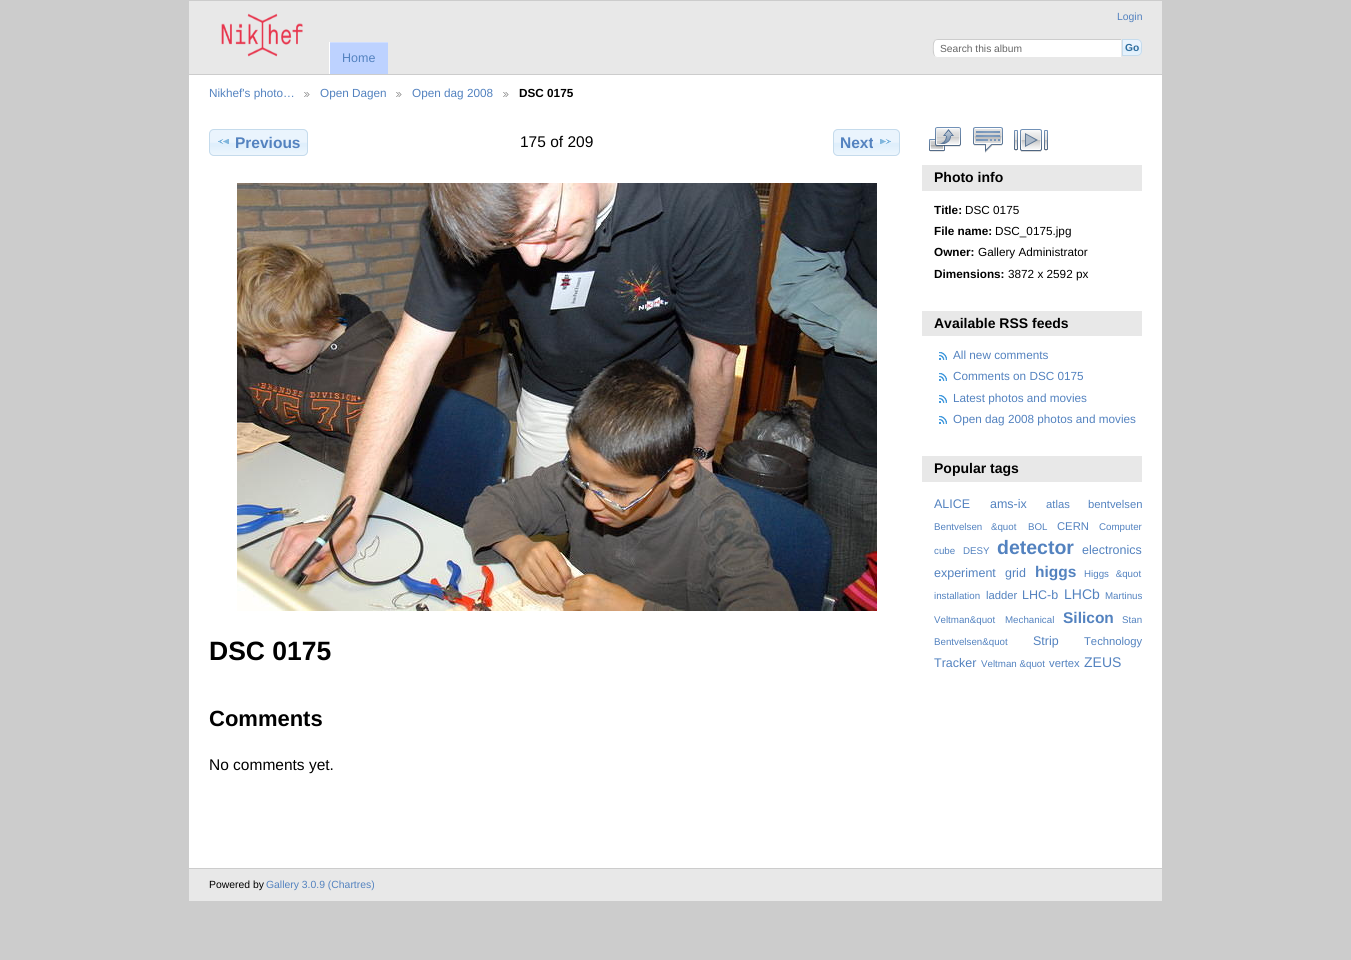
import math
import cairo

surface = cairo.ImageSurface(cairo.FORMAT_RGB24, 1351, 960)
cr = cairo.Context(surface)
options = cairo.FontOptions()
options.set_hint_metrics(cairo.HINT_METRICS_OFF)
options.set_hint_style(cairo.HINT_STYLE_NONE)
cr.set_font_options(options)
cr.set_miter_limit(4)


def rgb(code):
    cr.set_source_rgb(*(v / 255 for v in bytes.fromhex(code[-6:])))


def tracked(x, y, s, letter, word):
    cr.move_to(x, y)
    for ch in s:
        cr.show_text(ch)
        cr.rel_move_to(letter + word * (ch == ' '), 0)


def rrect(x, y, w, h, r):
    cr.new_sub_path()
    for i, (u, v) in enumerate([(x + w - r, y + h - r), (x + r, y + h - r), (x + r, y + r), (x + w - r, y + r)]):
        cr.arc(u, v, r, i * math.pi / 2, (i + 1) * math.pi / 2)
    cr.close_path()


def image(path, x, y, w, h):
    cr.save()
    cr.set_source_surface(cairo.ImageSurface.create_from_png(path), x, y)
    cr.rectangle(x, y, w, h)
    cr.fill()
    cr.restore()


rgb("#cccccc")
cr.paint()
rgb("#ffffff")
cr.rectangle(189, 75, 973, 793)
cr.fill()
rgb("#e8e8e8")
cr.rectangle(189, 1, 973, 73)
cr.fill()
image("img/1.png", 221, 13, 82, 44)
rgb("#ffffff")
cr.new_path()
cr.move_to(938, 39)
cr.line_to(1122, 39)
cr.line_to(1122, 58)
cr.line_to(938, 58)
cr.curve_to(935, 58, 933, 56, 933, 53)
cr.line_to(933, 44)
cr.curve_to(933, 41, 935, 39, 938, 39)
cr.close_path()
cr.fill()
rgb("#cccccc")
cr.new_path()
cr.move_to(938, 39)
cr.curve_to(936, 39, 935, 40, 934, 40)
cr.line_to(935, 41)
cr.curve_to(936, 40, 937, 40, 938, 40)
cr.line_to(1121, 40)
cr.line_to(1122, 39)
cr.close_path()
cr.fill()
rgb("#e8e8e8")
cr.new_path()
cr.move_to(1122, 39)
cr.line_to(1121, 40)
cr.line_to(1121, 57)
cr.line_to(1122, 58)
cr.close_path()
cr.fill()
cr.new_path()
cr.move_to(1122, 58)
cr.line_to(1121, 57)
cr.line_to(937, 57)
cr.line_to(935, 56)
cr.line_to(934, 57)
cr.curve_to(935, 58, 936, 58, 938, 58)
cr.close_path()
cr.fill()
rgb("#cccccc")
cr.new_path()
cr.move_to(933, 44)
cr.curve_to(933, 47, 932, 54.5, 934.5, 56.5)
cr.line_to(935, 56)
cr.curve_to(933.5, 53.5, 933.5, 46, 934, 43.5)
cr.line_to(935, 41)
cr.line_to(934.5, 40.5)
cr.curve_to(933.5, 41, 933, 42.5, 933, 44)
cr.close_path()
cr.fill()
image("img/2.png", 1123, 39, 19, 17)
cr.new_path()
cr.move_to(1122.5, 39.5)
cr.line_to(1137, 39.5)
cr.curve_to(1139.5, 39.5, 1141.5, 41.5, 1141.5, 44)
cr.line_to(1141.5, 51)
cr.curve_to(1141.5, 53.5, 1139.5, 55.5, 1137, 55.5)
cr.line_to(1122.5, 55.5)
cr.close_path()
rgb("#c5dbec")
cr.set_line_width(1)
cr.stroke()
for x, y, w, h, color in [
    (330, 43, 58, 31, "#bdd2ff"),
    (329, 42, 59, 1, "#cfdeff"),
    (329, 42, 1, 32, "#ffffff"),
]:
    rgb(color)
    cr.rectangle(x, y, w, h)
    cr.fill()
image("img/3.png", 304, 92, 6, 5)
image("img/3.png", 396, 92, 6, 5)
image("img/3.png", 503, 92, 6, 5)
image("img/4.png", 209, 129, 99, 27)
rrect(209.5, 129.5, 98, 26, 4.5)
rgb("#c5dbec")
cr.stroke()
image("img/5.png", 218, 139, 11, 5)
image("img/6.png", 833, 129, 67, 27)
rrect(833.5, 129.5, 66, 26, 4.5)
cr.stroke()
image("img/7.png", 880, 139, 11, 5)
image("img/8.png", 237, 183, 640, 428)
image("img/9.png", 929, 127, 32, 25)
image("img/10.png", 973, 127, 30, 26)
image("img/11.png", 1014, 129, 34, 23)
rgb("#e8e8e8")
cr.rectangle(922, 165, 220, 26)
cr.fill()
cr.rectangle(922, 311, 220, 25)
cr.fill()
image("img/12.png", 939, 352, 8, 8)
image("img/12.png", 939, 373, 8, 8)
image("img/12.png", 939, 395, 8, 8)
image("img/12.png", 939, 416, 8, 8)
cr.rectangle(922, 456, 220, 26)
cr.fill()
cr.rectangle(189, 869, 973, 32)
cr.fill()
cr.select_font_face("Liberation Sans")
cr.set_font_size(10.4)
rgb("#5382bf")
cr.move_to(1117, 20)
cr.show_text("Login")
cr.set_font_size(10.25)
rgb("#666666")
cr.move_to(940, 52)
cr.show_text("Search this album")
cr.select_font_face("Liberation Sans", cairo.FONT_SLANT_NORMAL, cairo.FONT_WEIGHT_BOLD)
rgb("#2e6e9e")
cr.move_to(1125, 51)
cr.show_text("Go")
cr.select_font_face("Liberation Sans")
cr.set_font_size(12.5)
rgb("#5382bf")
cr.move_to(342, 62)
cr.show_text("Home")
cr.set_font_size(11.75)
for x, y, s in [
    (209, 97, "Nikhef's photo…"),
    (320, 97, "Open Dagen"),
    (412, 97, "Open dag 2008"),
]:
    cr.move_to(x, y)
    cr.show_text(s)
cr.select_font_face("Liberation Sans", cairo.FONT_SLANT_NORMAL, cairo.FONT_WEIGHT_BOLD)
rgb("#000000")
cr.move_to(519, 97)
cr.show_text("DSC 0175")
cr.set_font_size(15.5)
rgb("#5382bf")
cr.move_to(235, 148)
cr.show_text("Previous")
cr.select_font_face("Liberation Sans")
rgb("#000000")
cr.move_to(520, 147)
cr.show_text("175 of 209")
cr.select_font_face("Liberation Sans", cairo.FONT_SLANT_NORMAL, cairo.FONT_WEIGHT_BOLD)
rgb("#5382bf")
cr.move_to(840, 148)
cr.show_text("Next")
cr.set_font_size(26.5)
rgb("#000000")
cr.move_to(209, 660)
cr.show_text("DSC 0175")
cr.set_font_size(22)
cr.move_to(209, 726)
cr.show_text("Comments")
cr.select_font_face("Liberation Sans")
cr.set_font_size(15.5)
cr.move_to(209, 770)
cr.show_text("No comments yet.")
cr.select_font_face("Liberation Sans", cairo.FONT_SLANT_NORMAL, cairo.FONT_WEIGHT_BOLD)
cr.set_font_size(14)
cr.move_to(934, 182)
cr.show_text("Photo info")
cr.set_font_size(11.75)
cr.move_to(934, 214)
cr.show_text("Title:")
cr.select_font_face("Liberation Sans")
cr.move_to(965, 214)
cr.show_text("DSC 0175")
cr.select_font_face("Liberation Sans", cairo.FONT_SLANT_NORMAL, cairo.FONT_WEIGHT_BOLD)
cr.move_to(934, 235)
cr.show_text("File name:")
cr.select_font_face("Liberation Sans")
cr.move_to(995, 235)
cr.show_text("DSC_0175.jpg")
cr.select_font_face("Liberation Sans", cairo.FONT_SLANT_NORMAL, cairo.FONT_WEIGHT_BOLD)
cr.move_to(934, 256)
cr.show_text("Owner:")
cr.select_font_face("Liberation Sans")
cr.move_to(978, 256)
cr.show_text("Gallery Administrator")
cr.select_font_face("Liberation Sans", cairo.FONT_SLANT_NORMAL, cairo.FONT_WEIGHT_BOLD)
cr.move_to(934, 278)
cr.show_text("Dimensions:")
cr.select_font_face("Liberation Sans")
cr.move_to(1008, 278)
cr.show_text("3872 x 2592 px")
cr.select_font_face("Liberation Sans", cairo.FONT_SLANT_NORMAL, cairo.FONT_WEIGHT_BOLD)
cr.set_font_size(14)
cr.move_to(934, 328)
cr.show_text("Available RSS feeds")
cr.select_font_face("Liberation Sans")
cr.set_font_size(11.75)
rgb("#5382bf")
for x, y, s in [
    (953, 359, "All new comments"),
    (953, 380, "Comments on DSC 0175"),
    (953, 402, "Latest photos and movies"),
    (953, 423, "Open dag 2008 photos and movies"),
]:
    cr.move_to(x, y)
    cr.show_text(s)
cr.select_font_face("Liberation Sans", cairo.FONT_SLANT_NORMAL, cairo.FONT_WEIGHT_BOLD)
cr.set_font_size(14)
rgb("#000000")
cr.move_to(934, 473)
cr.show_text("Popular tags")
cr.select_font_face("Liberation Sans")
cr.set_font_size(12.5)
rgb("#5382bf")
cr.move_to(934, 508)
cr.show_text("ALICE")
cr.move_to(990, 508)
cr.show_text("ams-ix")
cr.set_font_size(11.25)
cr.move_to(1046, 508)
cr.show_text("atlas")
cr.move_to(1088, 508)
cr.show_text("bentvelsen")
cr.set_font_size(9.75)
tracked(934, 530, "Bentvelsen &quot", 0, 6)
cr.move_to(1028, 530)
cr.show_text("BOL")
cr.set_font_size(11.25)
cr.move_to(1057, 530)
cr.show_text("CERN")
cr.set_font_size(9.75)
for x, y, s in [
    (1099, 530, "Computer"),
    (934, 554, "cube"),
    (963, 554, "DESY"),
]:
    cr.move_to(x, y)
    cr.show_text(s)
cr.select_font_face("Liberation Sans", cairo.FONT_SLANT_NORMAL, cairo.FONT_WEIGHT_BOLD)
cr.set_font_size(19.5)
cr.move_to(997, 554)
cr.show_text("detector")
cr.select_font_face("Liberation Sans")
cr.set_font_size(12.5)
for x, y, s in [
    (1082, 554, "electronics"),
    (934, 577, "experiment"),
    (1005, 577, "grid"),
]:
    cr.move_to(x, y)
    cr.show_text(s)
cr.select_font_face("Liberation Sans", cairo.FONT_SLANT_NORMAL, cairo.FONT_WEIGHT_BOLD)
cr.set_font_size(15.5)
cr.move_to(1035, 577)
cr.show_text("higgs")
cr.select_font_face("Liberation Sans")
cr.set_font_size(9.75)
tracked(1084, 577, "Higgs &quot", 0, 4)
cr.move_to(934, 599)
cr.show_text("installation")
cr.set_font_size(11.25)
cr.move_to(986, 599)
cr.show_text("ladder")
cr.set_font_size(12.5)
cr.move_to(1022, 599)
cr.show_text("LHC-b")
cr.set_font_size(14)
cr.move_to(1064, 599)
cr.show_text("LHCb")
cr.set_font_size(9.75)
for x, y, s in [
    (1105, 599, "Martinus"),
    (934, 623, "Veltman&quot"),
    (1005, 623, "Mechanical"),
]:
    cr.move_to(x, y)
    cr.show_text(s)
cr.select_font_face("Liberation Sans", cairo.FONT_SLANT_NORMAL, cairo.FONT_WEIGHT_BOLD)
cr.set_font_size(15.5)
cr.move_to(1063, 623)
cr.show_text("Silicon")
cr.select_font_face("Liberation Sans")
cr.set_font_size(9.75)
cr.move_to(1122, 623)
cr.show_text("Stan")
cr.move_to(934, 645)
cr.show_text("Bentvelsen&quot")
cr.set_font_size(12.5)
cr.move_to(1033, 645)
cr.show_text("Strip")
cr.set_font_size(11.25)
cr.move_to(1084, 645)
cr.show_text("Technology")
cr.set_font_size(12.5)
cr.move_to(934, 667)
cr.show_text("Tracker")
cr.set_font_size(9.75)
cr.move_to(981, 667)
cr.show_text("Veltman &quot")
cr.set_font_size(11.25)
cr.move_to(1049, 667)
cr.show_text("vertex")
cr.set_font_size(14)
cr.move_to(1084, 667)
cr.show_text("ZEUS")
cr.set_font_size(10.4)
rgb("#000000")
cr.move_to(209, 888)
cr.show_text("Powered by")
rgb("#5382bf")
cr.move_to(266, 888)
cr.show_text("Gallery 3.0.9 (Chartres)")
surface.write_to_png("page.png")
